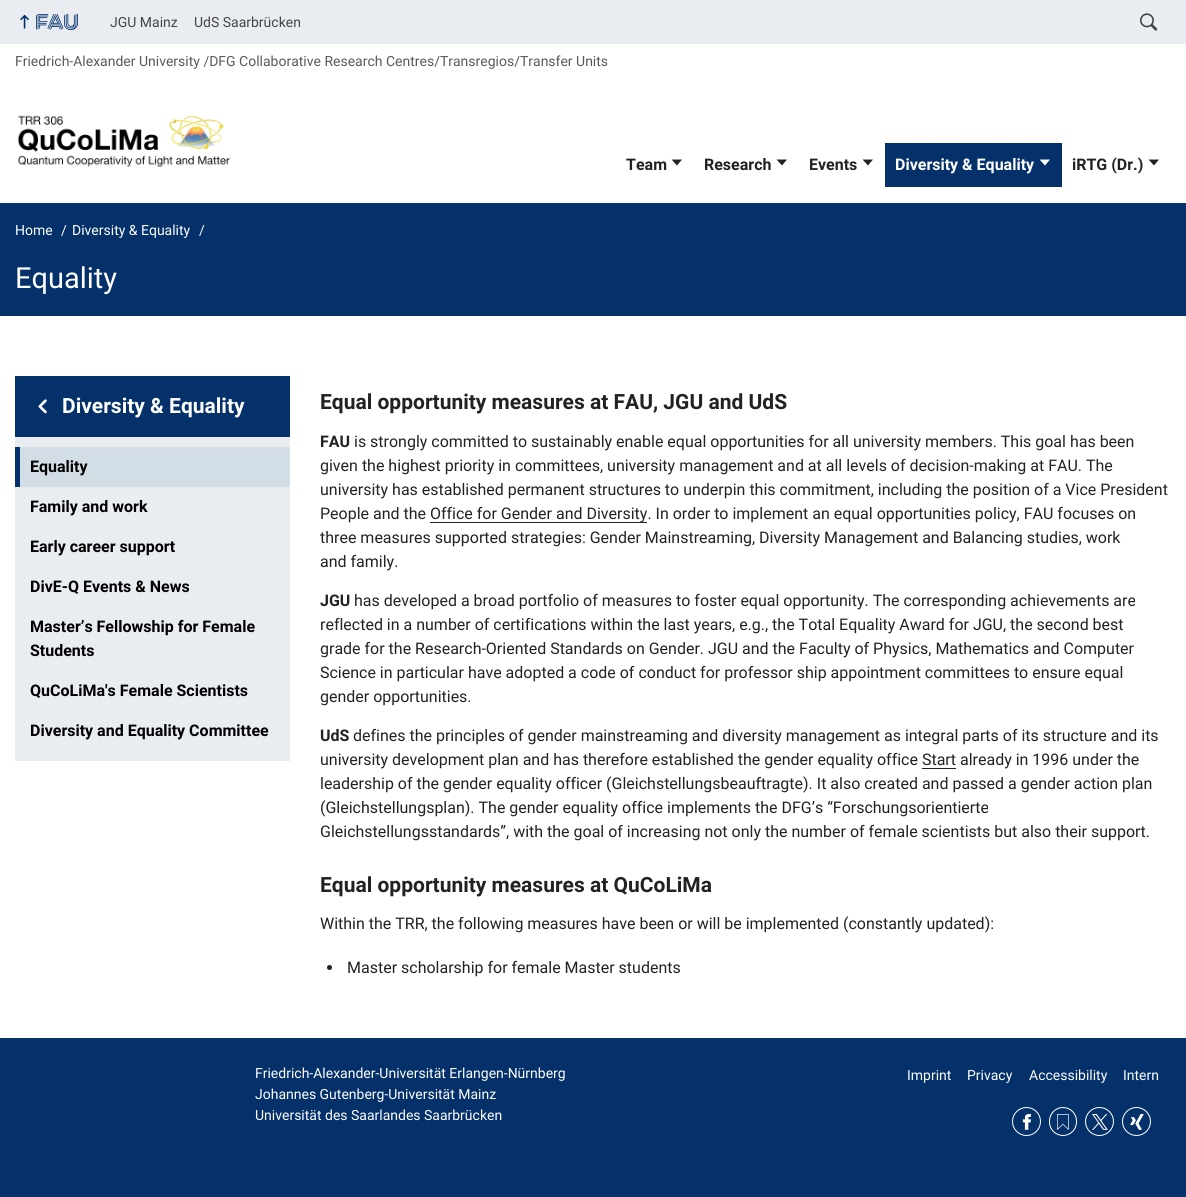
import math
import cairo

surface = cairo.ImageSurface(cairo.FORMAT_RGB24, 1186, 1197)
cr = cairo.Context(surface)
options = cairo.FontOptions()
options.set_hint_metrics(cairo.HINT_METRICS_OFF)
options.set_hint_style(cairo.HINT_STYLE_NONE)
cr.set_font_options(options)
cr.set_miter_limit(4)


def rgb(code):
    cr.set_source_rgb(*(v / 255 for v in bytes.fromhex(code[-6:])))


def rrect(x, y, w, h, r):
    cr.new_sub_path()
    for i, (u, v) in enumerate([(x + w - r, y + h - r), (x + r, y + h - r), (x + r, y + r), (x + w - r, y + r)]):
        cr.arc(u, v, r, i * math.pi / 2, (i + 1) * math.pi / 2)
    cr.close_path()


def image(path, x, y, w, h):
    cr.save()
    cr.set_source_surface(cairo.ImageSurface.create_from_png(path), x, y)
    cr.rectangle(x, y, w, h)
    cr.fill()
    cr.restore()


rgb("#ffffff")
cr.paint()
rgb("#e9edf2")
cr.rectangle(0, 0, 1186, 44)
cr.fill()
image("img/1.png", 20, 14, 9, 15)
image("img/2.png", 36, 14, 42, 16)
image("img/3.png", 1139, 13, 19, 18)
image("img/4.png", 17, 115, 213, 52)
rgb("#222222")
cr.new_path()
cr.move_to(671.5, 159.5)
cr.line_to(677, 165.5)
cr.line_to(682, 159.5)
cr.close_path()
cr.fill()
cr.new_path()
cr.move_to(776.5, 159.5)
cr.line_to(782, 165.5)
cr.line_to(787, 159.5)
cr.close_path()
cr.fill()
cr.new_path()
cr.move_to(862.5, 159.5)
cr.line_to(868, 165.5)
cr.line_to(873, 159.5)
cr.close_path()
cr.fill()
rgb("#04316a")
cr.rectangle(885, 143, 177, 44)
cr.fill()
rgb("#ffffff")
cr.new_path()
cr.move_to(1039.5, 159.5)
cr.line_to(1045, 165.5)
cr.line_to(1050, 159.5)
cr.close_path()
cr.fill()
rgb("#222222")
cr.new_path()
cr.move_to(1148.5, 159.5)
cr.line_to(1154, 165.5)
cr.line_to(1159, 159.5)
cr.close_path()
cr.fill()
rgb("#04316a")
cr.rectangle(0, 203, 1186, 113)
cr.fill()
cr.rectangle(15, 376, 275, 61)
cr.fill()
image("img/5.png", 38, 399, 9, 15)
for x, y, w, h, color in [
    (15, 437, 275, 324, "#e9edf2"),
    (20, 447, 270, 40, "#d3dde6"),
    (15, 447, 5, 40, "#04316a"),
    (430, 522, 217, 1, "#222222"),
    (922, 768, 34, 1, "#222222"),
]:
    rgb(color)
    cr.rectangle(x, y, w, h)
    cr.fill()
cr.arc(329.5, 967.5, 2.5, 0, 2 * math.pi)
cr.fill()
rgb("#04316a")
cr.rectangle(0, 1038, 1186, 159)
cr.fill()
cr.arc(1026.5, 1121.5, 14, 0, 2 * math.pi)
rgb("#ffffff")
cr.set_line_width(1)
cr.stroke()
image("img/6.png", 1022, 1114, 9, 16)
rrect(1049.5, 1107.5, 27, 28, 13.5)
cr.stroke()
image("img/7.png", 1057, 1114, 12, 16)
cr.arc(1099.5, 1121.5, 14, 0, 2 * math.pi)
cr.stroke()
image("img/8.png", 1092, 1114, 16, 16)
cr.arc(1136.5, 1121.5, 14, 0, 2 * math.pi)
cr.stroke()
image("img/9.png", 1130, 1114, 14, 16)
cr.select_font_face("Roboto")
cr.set_font_size(14)
rgb("#444444")
cr.move_to(110, 27)
cr.show_text("JGU Mainz")
cr.move_to(194, 27)
cr.show_text("UdS Saarbrücken")
rgb("#5b5858")
cr.move_to(15, 66)
cr.show_text("Friedrich-Alexander University /DFG Collaborative Research Centres/Transregios/Transfer Units")
cr.select_font_face("Roboto", cairo.FONT_SLANT_NORMAL, cairo.FONT_WEIGHT_BOLD)
cr.set_font_size(16)
rgb("#222222")
for x, y, s in [
    (626, 170, "Team"),
    (704, 170, "Research"),
    (809, 170, "Events"),
]:
    cr.move_to(x, y)
    cr.show_text(s)
rgb("#ffffff")
cr.move_to(895, 170)
cr.show_text("Diversity & Equality")
rgb("#222222")
cr.move_to(1072, 170)
cr.show_text("iRTG (Dr.)")
cr.select_font_face("Roboto")
cr.set_font_size(14)
rgb("#ffffff")
for x, y, s in [
    (15, 235, "Home"),
    (61, 235, "/"),
    (72, 235, "Diversity & Equality"),
    (199, 235, "/"),
]:
    cr.move_to(x, y)
    cr.show_text(s)
cr.set_font_size(29)
cr.move_to(15, 288)
cr.show_text("Equality")
cr.select_font_face("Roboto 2", cairo.FONT_SLANT_NORMAL, cairo.FONT_WEIGHT_BOLD)
cr.set_font_size(21)
cr.move_to(62, 413)
cr.show_text("Diversity & Equality")
cr.select_font_face("Roboto", cairo.FONT_SLANT_NORMAL, cairo.FONT_WEIGHT_BOLD)
cr.set_font_size(16)
rgb("#000000")
cr.move_to(30, 472)
cr.show_text("Equality")
cr.select_font_face("Roboto 2", cairo.FONT_SLANT_NORMAL, cairo.FONT_WEIGHT_BOLD)
for x, y, s in [
    (30, 512, "Family and work"),
    (30, 552, "Early career support"),
    (30, 592, "DivE-Q Events & News"),
    (30, 632, "Master’s Fellowship for Female"),
    (30, 656, "Students"),
    (30, 696, "QuCoLiMa's Female Scientists"),
    (30, 736, "Diversity and Equality Committee"),
]:
    cr.move_to(x, y)
    cr.show_text(s)
cr.select_font_face("Roboto", cairo.FONT_SLANT_NORMAL, cairo.FONT_WEIGHT_BOLD)
cr.set_font_size(21)
rgb("#222222")
cr.move_to(320, 409)
cr.show_text("Equal opportunity measures at FAU, JGU and UdS")
cr.set_font_size(16)
cr.move_to(320, 447)
cr.show_text("FAU")
cr.select_font_face("Roboto")
for x, y, s in [
    (354, 447, "is strongly committed to sustainably enable equal opportunities for all university members. This goal has been"),
    (320, 471, "given the highest priority in committees, university management and at all levels of decision-making at FAU. The"),
    (320, 495, "university has established permanent structures to underpin this commitment, including the position of a Vice President"),
    (320, 519, "People and the"),
    (430, 519, "Office for Gender and Diversity. In order to implement an equal opportunities policy, FAU focuses on"),
    (320, 543, "three measures supported strategies: Gender Mainstreaming, Diversity Management and Balancing studies, work"),
    (320, 567, "and family."),
]:
    cr.move_to(x, y)
    cr.show_text(s)
cr.select_font_face("Roboto", cairo.FONT_SLANT_NORMAL, cairo.FONT_WEIGHT_BOLD)
cr.move_to(320, 606)
cr.show_text("JGU")
cr.select_font_face("Roboto")
for x, y, s in [
    (354, 606, "has developed a broad portfolio of measures to foster equal opportunity. The corresponding achievements are"),
    (320, 630, "reflected in a number of certifications within the last years, e.g., the Total Equality Award for JGU, the second best"),
    (320, 654, "grade for the Research-Oriented Standards on Gender. JGU and the Faculty of Physics, Mathematics and Computer"),
    (320, 678, "Science in particular have adopted a code of conduct for professor ship appointment committees to ensure equal"),
    (320, 702, "gender opportunities."),
]:
    cr.move_to(x, y)
    cr.show_text(s)
cr.select_font_face("Roboto", cairo.FONT_SLANT_NORMAL, cairo.FONT_WEIGHT_BOLD)
cr.move_to(320, 741)
cr.show_text("UdS")
cr.select_font_face("Roboto")
for x, y, s in [
    (353, 741, "defines the principles of gender mainstreaming and diversity management as integral parts of its structure and its"),
    (320, 765, "university development plan and has therefore established the gender equality office Start already in 1996 under the"),
    (320, 789, "leadership of the gender equality officer (Gleichstellungsbeauftragte). It also created and passed a gender action plan"),
    (320, 813, "(Gleichstellungsplan). The gender equality office implements the DFG’s “Forschungsorientierte"),
    (320, 837, "Gleichstellungsstandards”, with the goal of increasing not only the number of female scientists but also their support."),
]:
    cr.move_to(x, y)
    cr.show_text(s)
cr.select_font_face("Roboto", cairo.FONT_SLANT_NORMAL, cairo.FONT_WEIGHT_BOLD)
cr.set_font_size(21)
cr.move_to(320, 892)
cr.show_text("Equal opportunity measures at QuCoLiMa")
cr.select_font_face("Roboto")
cr.set_font_size(16)
cr.move_to(320, 929)
cr.show_text("Within the TRR, the following measures have been or will be implemented (constantly updated):")
cr.move_to(347, 973)
cr.show_text("Master scholarship for female Master students")
cr.set_font_size(14)
rgb("#ffffff")
for x, y, s in [
    (255, 1078, "Friedrich-Alexander-Universität Erlangen-Nürnberg"),
    (255, 1099, "Johannes Gutenberg-Universität Mainz"),
    (255, 1120, "Universität des Saarlandes Saarbrücken"),
    (907, 1080, "Imprint"),
    (967, 1080, "Privacy"),
    (1029, 1080, "Accessibility"),
    (1123, 1080, "Intern"),
]:
    cr.move_to(x, y)
    cr.show_text(s)
surface.write_to_png("page.png")
